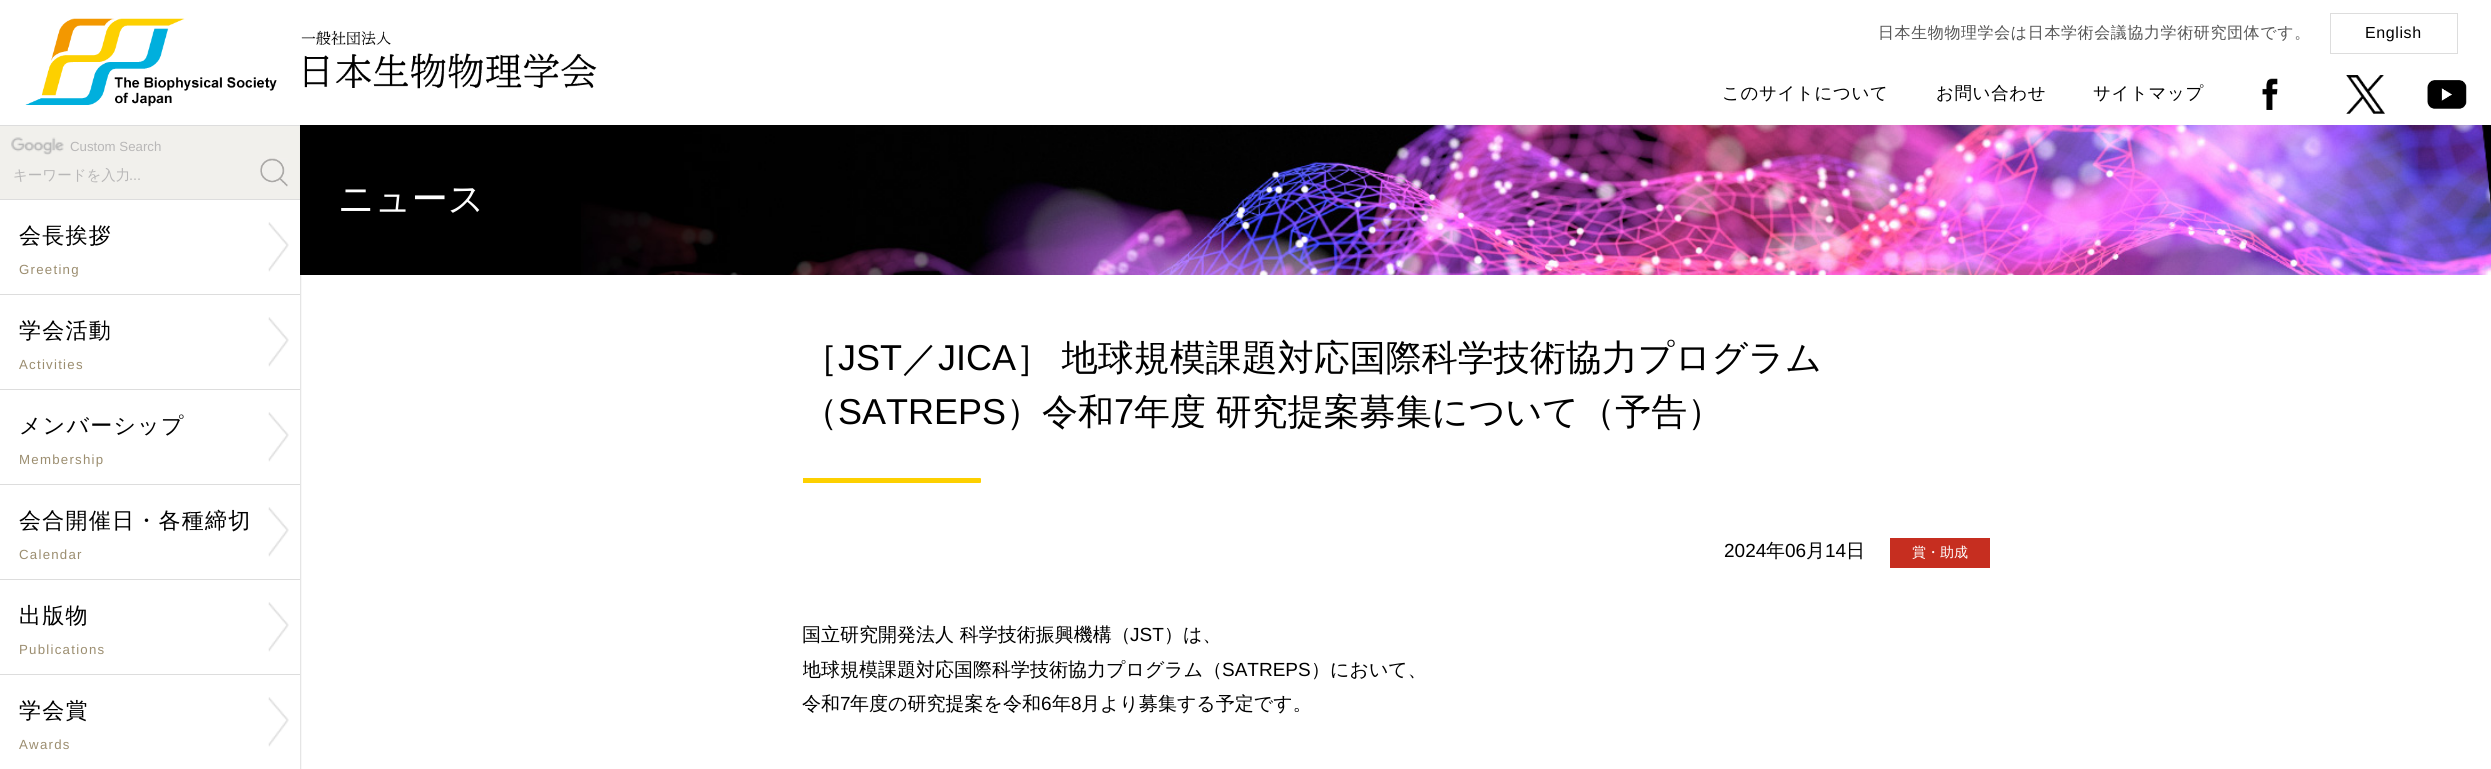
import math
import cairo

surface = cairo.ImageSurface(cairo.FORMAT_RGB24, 2491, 769)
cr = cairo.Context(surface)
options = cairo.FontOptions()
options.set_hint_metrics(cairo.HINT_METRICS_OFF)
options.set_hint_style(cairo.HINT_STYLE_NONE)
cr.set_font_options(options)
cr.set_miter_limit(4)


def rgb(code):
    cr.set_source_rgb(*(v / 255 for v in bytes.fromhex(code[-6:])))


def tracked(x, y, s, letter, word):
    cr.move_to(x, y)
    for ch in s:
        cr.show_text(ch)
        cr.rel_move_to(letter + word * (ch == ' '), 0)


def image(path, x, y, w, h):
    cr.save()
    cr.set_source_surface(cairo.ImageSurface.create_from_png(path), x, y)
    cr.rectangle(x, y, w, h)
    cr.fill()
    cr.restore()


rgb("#ffffff")
cr.paint()
image("img/1.png", 0, 126, 302, 643)
image("img/2.png", 25, 18, 572, 89)
cr.rectangle(2330.5, 13.5, 127, 40)
rgb("#dddddd")
cr.set_line_width(1)
cr.stroke()
image("img/3.png", 2262, 78, 16, 32)
image("img/4.png", 2346, 75, 39, 39)
image("img/5.png", 2427, 80, 40, 29)
cr.rectangle(0, 125, 300, 1)
cr.fill()
cr.rectangle(0, 199, 300, 1)
cr.fill()
image("img/6.png", 11, 137, 53, 18)
image("img/7.png", 260, 158, 28, 29)
rgb("#ffffff")
cr.rectangle(0, 200, 300, 94)
cr.fill()
image("img/8.png", 268, 222, 21, 50)
rgb("#dddddd")
cr.rectangle(0, 294, 300, 1)
cr.fill()
rgb("#ffffff")
cr.rectangle(0, 295, 300, 94)
cr.fill()
image("img/8.png", 268, 317, 21, 50)
rgb("#dddddd")
cr.rectangle(0, 389, 300, 1)
cr.fill()
rgb("#ffffff")
cr.rectangle(0, 390, 300, 94)
cr.fill()
image("img/8.png", 268, 412, 21, 50)
rgb("#dddddd")
cr.rectangle(0, 484, 300, 1)
cr.fill()
rgb("#ffffff")
cr.rectangle(0, 485, 300, 94)
cr.fill()
image("img/8.png", 268, 507, 21, 50)
rgb("#dddddd")
cr.rectangle(0, 579, 300, 1)
cr.fill()
rgb("#ffffff")
cr.rectangle(0, 580, 300, 94)
cr.fill()
image("img/8.png", 268, 602, 21, 50)
rgb("#dddddd")
cr.rectangle(0, 674, 300, 1)
cr.fill()
rgb("#ffffff")
cr.rectangle(0, 675, 300, 94)
cr.fill()
image("img/8.png", 268, 697, 21, 50)
rgb("#000000")
cr.rectangle(300, 125, 281, 150)
cr.fill()
image("img/9.png", 581, 125, 1910, 150)
rgb("#fdd000")
cr.new_path()
cr.move_to(803, 478)
cr.line_to(980, 478)
cr.curve_to(980.5, 478, 981, 478.5, 981, 479)
cr.line_to(981, 482)
cr.curve_to(981, 482.5, 980.5, 483, 980, 483)
cr.line_to(803, 483)
cr.close_path()
cr.fill()
rgb("#c62e20")
cr.rectangle(1890, 538, 100, 30)
cr.fill()
cr.select_font_face("WenQuanYi Zen Hei Medium")
cr.set_font_size(16)
rgb("#555555")
tracked(1878, 38, "日本生物物理学会は日本学術会議協力学術研究団体です。", 0.6, 0)
cr.select_font_face("Liberation Sans")
rgb("#000000")
tracked(2365, 38, "English", 0.6, 0)
cr.select_font_face("WenQuanYi Zen Hei Medium")
cr.set_font_size(17.5)
for x, y, s in [
    (1722, 99, "このサイトについて"),
    (1936, 99, "お問い合わせ"),
    (2093, 99, "サイトマップ"),
]:
    tracked(x, y, s, 0.6, 0)
cr.select_font_face("Liberation Sans")
cr.set_font_size(13.25)
rgb("#b8b7b7")
cr.move_to(70, 151)
cr.show_text("Custom Search")
cr.select_font_face("WenQuanYi Zen Hei Medium")
cr.set_font_size(14.5)
cr.move_to(13, 180)
cr.show_text("キーワードを入力")
cr.select_font_face("Liberation Sans")
cr.move_to(129, 180)
cr.show_text("...")
cr.select_font_face("WenQuanYi Zen Hei Medium")
cr.set_font_size(22)
rgb("#000000")
tracked(19, 243, "会長挨拶", 1.25, 0)
cr.select_font_face("Liberation Sans")
cr.set_font_size(13.25)
rgb("#9b8d6f")
tracked(19, 274, "Greeting", 1.25, 0)
cr.select_font_face("WenQuanYi Zen Hei Medium")
cr.set_font_size(22)
rgb("#000000")
tracked(19, 338, "学会活動", 1.25, 0)
cr.select_font_face("Liberation Sans")
cr.set_font_size(13.25)
rgb("#9b8d6f")
tracked(19, 369, "Activities", 1.25, 0)
cr.select_font_face("WenQuanYi Zen Hei Medium")
cr.set_font_size(22)
rgb("#000000")
tracked(19, 433, "メンバーシップ", 1.25, 0)
cr.select_font_face("Liberation Sans")
cr.set_font_size(13.25)
rgb("#9b8d6f")
tracked(19, 464, "Membership", 1.25, 0)
cr.select_font_face("WenQuanYi Zen Hei Medium")
cr.set_font_size(22)
rgb("#000000")
tracked(19, 528, "会合開催日・各種締切", 1.25, 0)
cr.select_font_face("Liberation Sans")
cr.set_font_size(13.25)
rgb("#9b8d6f")
tracked(19, 559, "Calendar", 1.25, 0)
cr.select_font_face("WenQuanYi Zen Hei Medium")
cr.set_font_size(22)
rgb("#000000")
tracked(19, 623, "出版物", 1.25, 0)
cr.select_font_face("Liberation Sans")
cr.set_font_size(13.25)
rgb("#9b8d6f")
tracked(19, 654, "Publications", 1.25, 0)
cr.select_font_face("WenQuanYi Zen Hei Medium")
cr.set_font_size(22)
rgb("#000000")
tracked(19, 718, "学会賞", 1.25, 0)
cr.select_font_face("Liberation Sans")
cr.set_font_size(13.25)
rgb("#9b8d6f")
tracked(19, 749, "Awards", 1.25, 0)
cr.select_font_face("WenQuanYi Zen Hei Medium")
cr.set_font_size(36)
rgb("#ffffff")
cr.move_to(338, 211)
cr.show_text("ニュース")
rgb("#000000")
cr.move_to(802, 370)
cr.show_text("［")
cr.select_font_face("Liberation Sans")
cr.move_to(838, 370)
cr.show_text("JST")
cr.select_font_face("WenQuanYi Zen Hei Medium")
cr.move_to(902, 370)
cr.show_text("／")
cr.select_font_face("Liberation Sans")
cr.move_to(938, 370)
cr.show_text("JICA")
cr.select_font_face("WenQuanYi Zen Hei Medium")
tracked(1016, 370, "］ 地球規模課題対応国際科学技術協力プログラム", 0, -1)
cr.move_to(802, 424)
cr.show_text("（")
cr.select_font_face("Liberation Sans")
cr.move_to(838, 424)
cr.show_text("SATREPS")
cr.select_font_face("WenQuanYi Zen Hei Medium")
cr.move_to(1006, 424)
cr.show_text("）令和")
cr.select_font_face("Liberation Sans")
cr.move_to(1114, 424)
cr.show_text("7")
cr.select_font_face("WenQuanYi Zen Hei Medium")
tracked(1134, 424, "年度 研究提案募集について（予告）", 0, -1)
cr.select_font_face("Liberation Sans")
cr.set_font_size(19)
cr.move_to(1724, 557)
cr.show_text("2024")
cr.select_font_face("WenQuanYi Zen Hei Medium")
cr.move_to(1766, 557)
cr.show_text("年")
cr.select_font_face("Liberation Sans")
cr.move_to(1785, 557)
cr.show_text("06")
cr.select_font_face("WenQuanYi Zen Hei Medium")
cr.move_to(1806, 557)
cr.show_text("月")
cr.select_font_face("Liberation Sans")
cr.move_to(1825, 557)
cr.show_text("14")
cr.select_font_face("WenQuanYi Zen Hei Medium")
cr.move_to(1846, 557)
cr.show_text("日")
cr.set_font_size(14)
rgb("#ffffff")
cr.move_to(1912, 557)
cr.show_text("賞・助成")
cr.set_font_size(19)
rgb("#000000")
cr.move_to(802, 641)
cr.show_text("国立研究開発法人 科学技術振興機構（")
cr.select_font_face("Liberation Sans")
cr.move_to(1130, 641)
cr.show_text("JST")
cr.select_font_face("WenQuanYi Zen Hei Medium")
cr.move_to(1164, 641)
cr.show_text("）は、")
cr.save()
cr.rectangle(803, 275, 1187, 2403)
cr.clip()
cr.move_to(802, 676)
cr.show_text("地球規模課題対応国際科学技術協力プログラム（")
cr.restore()
cr.select_font_face("Liberation Sans")
cr.move_to(1222, 676)
cr.show_text("SATREPS")
cr.select_font_face("WenQuanYi Zen Hei Medium")
cr.move_to(1311, 676)
cr.show_text("）において、")
cr.move_to(802, 710)
cr.show_text("令和")
cr.select_font_face("Liberation Sans")
cr.move_to(840, 710)
cr.show_text("7")
cr.select_font_face("WenQuanYi Zen Hei Medium")
cr.move_to(850, 710)
cr.show_text("年度の研究提案を令和")
cr.select_font_face("Liberation Sans")
cr.move_to(1041, 710)
cr.show_text("6")
cr.select_font_face("WenQuanYi Zen Hei Medium")
cr.move_to(1052, 710)
cr.show_text("年")
cr.select_font_face("Liberation Sans")
cr.move_to(1071, 710)
cr.show_text("8")
cr.select_font_face("WenQuanYi Zen Hei Medium")
cr.move_to(1081, 710)
cr.show_text("月より募集する予定です。")
surface.write_to_png("page.png")
